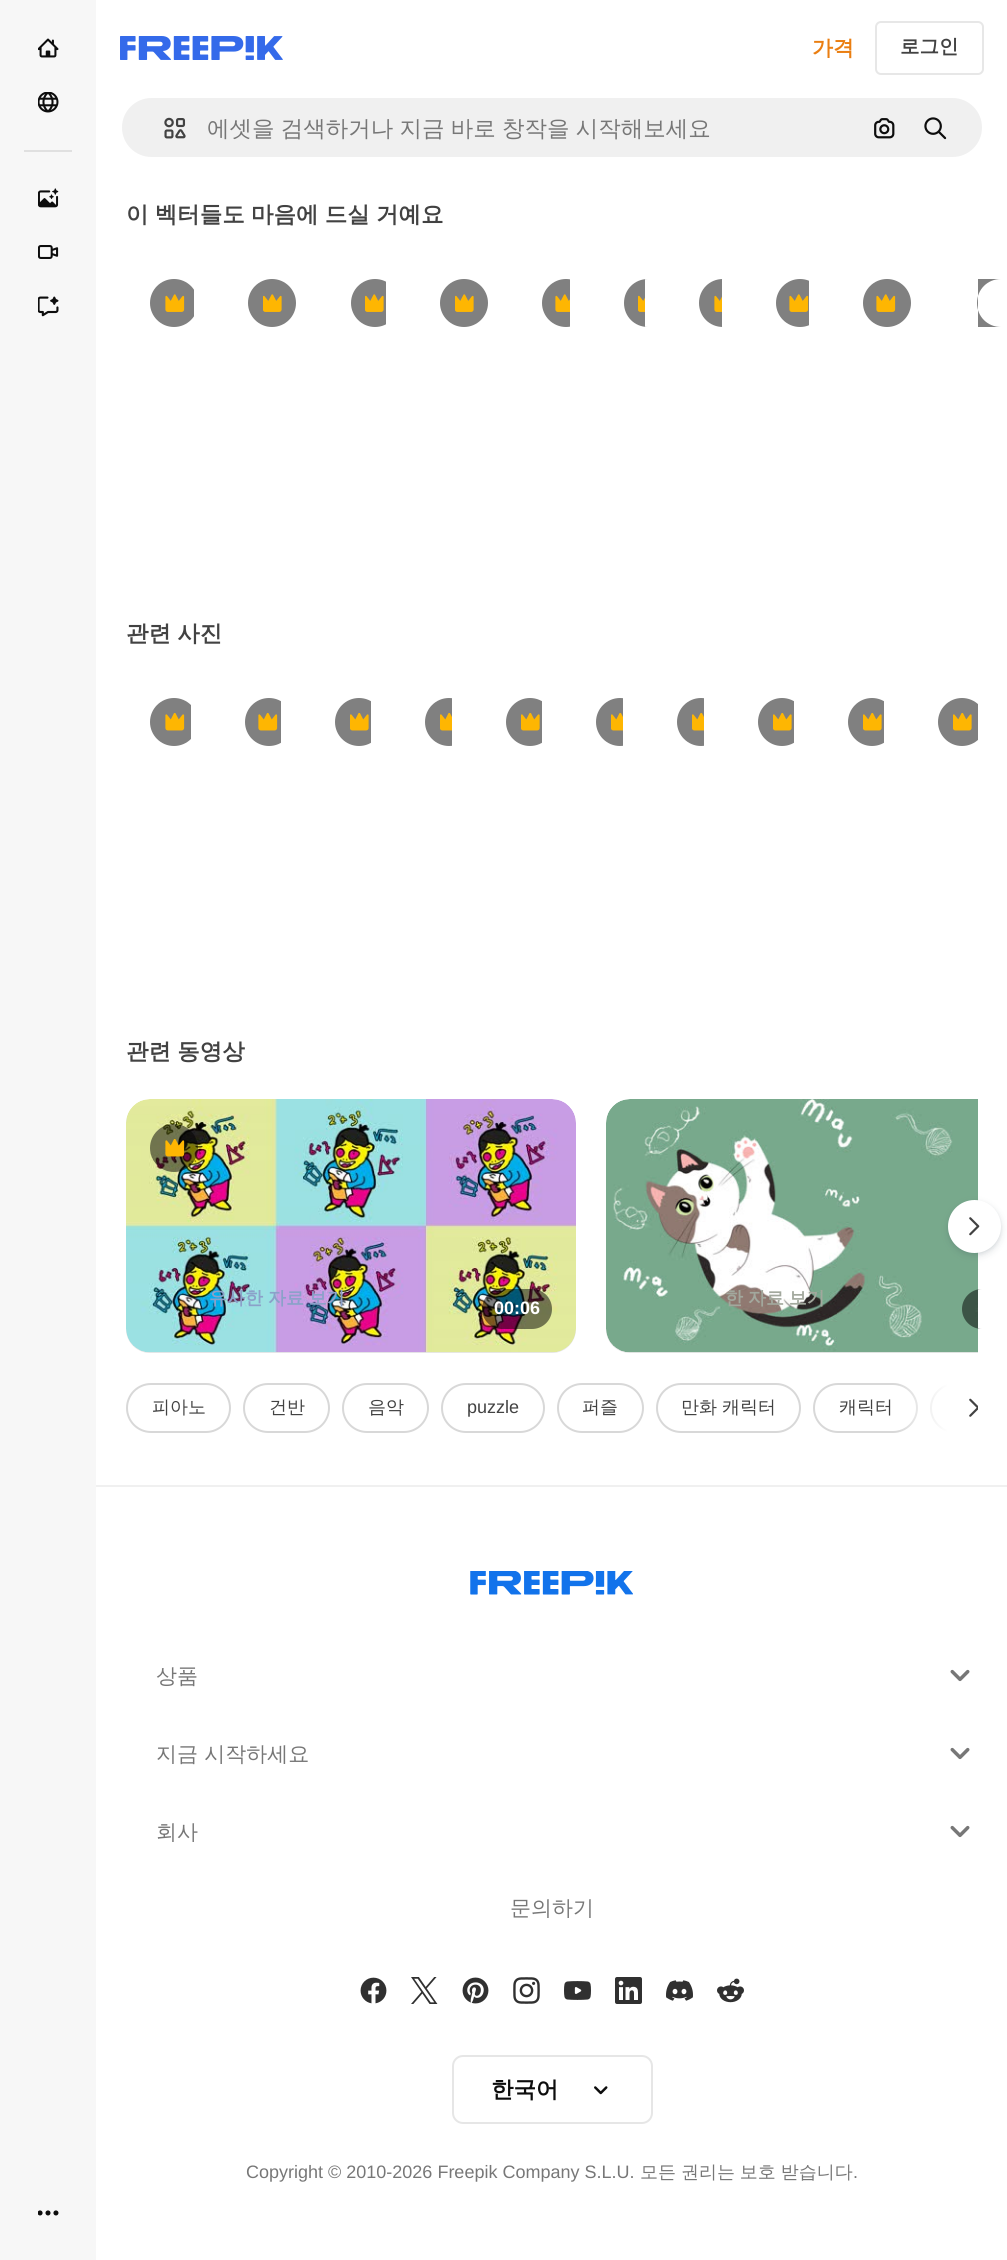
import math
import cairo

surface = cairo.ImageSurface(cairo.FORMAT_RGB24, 1007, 2260)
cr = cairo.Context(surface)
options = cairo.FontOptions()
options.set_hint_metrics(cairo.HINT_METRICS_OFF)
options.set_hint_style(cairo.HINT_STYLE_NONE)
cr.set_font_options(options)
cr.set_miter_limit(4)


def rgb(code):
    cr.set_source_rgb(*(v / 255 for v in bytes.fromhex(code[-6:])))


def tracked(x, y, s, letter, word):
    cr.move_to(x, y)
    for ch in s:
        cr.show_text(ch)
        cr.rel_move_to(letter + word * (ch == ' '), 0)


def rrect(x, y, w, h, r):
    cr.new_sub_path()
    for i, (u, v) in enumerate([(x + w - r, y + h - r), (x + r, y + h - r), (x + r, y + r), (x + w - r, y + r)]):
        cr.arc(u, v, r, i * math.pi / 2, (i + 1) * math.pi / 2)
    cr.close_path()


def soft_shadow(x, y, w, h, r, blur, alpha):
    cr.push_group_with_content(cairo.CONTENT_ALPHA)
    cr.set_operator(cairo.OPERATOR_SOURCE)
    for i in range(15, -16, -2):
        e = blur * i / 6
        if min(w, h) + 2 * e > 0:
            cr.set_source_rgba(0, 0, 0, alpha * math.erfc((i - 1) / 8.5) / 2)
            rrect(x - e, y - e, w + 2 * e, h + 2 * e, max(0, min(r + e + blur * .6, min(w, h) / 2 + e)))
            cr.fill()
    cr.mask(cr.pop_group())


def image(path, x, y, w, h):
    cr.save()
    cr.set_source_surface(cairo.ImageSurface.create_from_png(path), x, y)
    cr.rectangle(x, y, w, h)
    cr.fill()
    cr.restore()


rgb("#ffffff")
cr.paint()
rgb("#f7f7f7")
cr.rectangle(0, 0, 96, 2260)
cr.fill()
image("img/1.png", 38, 38, 21, 20)
image("img/2.png", 38, 92, 21, 21)
rgb("#e0e0e0")
cr.rectangle(24, 150, 48, 2)
cr.fill()
image("img/3.png", 38, 188, 21, 20)
image("img/4.png", 38, 245, 21, 14)
image("img/5.png", 38, 296, 21, 21)
image("img/6.png", 38, 2210, 21, 6)
image("img/7.png", 120, 36, 163, 24)
rrect(876, 22, 107, 52, 5)
rgb("#e7e7e7")
cr.stroke()
rgb("#f0f0f0")
rrect(121, 97, 862, 61, 30.5)
cr.fill_preserve()
rgb("#ffffff")
cr.stroke()
image("img/8.png", 164, 117, 22, 22)
image("img/9.png", 874, 118, 21, 21)
image("img/10.png", 924, 117, 23, 23)
cr.save()
rrect(126, 255, 68, 300, 24)
cr.clip()
rgb("#808080")
cr.arc(174, 303, 24, 0, 2 * math.pi)
cr.fill()
cr.restore()
image("img/11.png", 165, 294, 20, 18)
rgb("#808080")
cr.arc(272, 303, 24, 0, 2 * math.pi)
cr.fill()
image("img/12.png", 263, 294, 19, 18)
cr.save()
rrect(327, 255, 59, 300, 24)
cr.clip()
cr.arc(375, 303, 24, 0, 2 * math.pi)
cr.fill()
cr.restore()
image("img/12.png", 365, 294, 19, 18)
cr.arc(464, 303, 24, 0, 2 * math.pi)
cr.fill()
image("img/12.png", 455, 294, 19, 18)
cr.save()
rrect(518, 255, 52, 300, 24)
cr.clip()
cr.arc(566, 303, 24, 0, 2 * math.pi)
cr.fill()
cr.restore()
image("img/13.png", 555, 294, 15, 18)
cr.new_path()
cr.move_to(648, 279)
cr.line_to(645, 279)
cr.line_to(645, 327)
cr.line_to(648, 327)
cr.curve_to(634.5, 327, 624, 316.5, 624, 303)
cr.curve_to(624, 289.5, 634.5, 279, 648, 279)
cr.close_path()
cr.fill()
image("img/14.png", 638, 295, 7, 17)
cr.new_path()
cr.move_to(723, 279)
cr.line_to(722, 279)
cr.line_to(722, 327)
cr.line_to(723, 327)
cr.curve_to(709.5, 327, 699, 316.5, 699, 303)
cr.curve_to(699, 289.5, 709.5, 279, 723, 279)
cr.close_path()
cr.fill()
image("img/15.png", 714, 295, 8, 17)
cr.save()
rrect(752, 255, 57, 300, 24)
cr.clip()
cr.arc(800, 303, 24, 0, 2 * math.pi)
cr.fill()
cr.restore()
image("img/11.png", 789, 294, 20, 18)
cr.arc(887, 303, 24, 0, 2 * math.pi)
cr.fill()
image("img/11.png", 876, 294, 20, 18)
cr.new_path()
cr.move_to(1001, 279)
cr.line_to(978, 279)
cr.line_to(978, 327)
cr.line_to(1001, 327)
cr.curve_to(987.5, 327, 977, 316.5, 977, 303)
cr.curve_to(977, 289.5, 987.5, 279, 1001, 279)
cr.close_path()
cr.fill()
cr.save()
rrect(126, 674, 65, 300, 24)
cr.clip()
cr.arc(174, 722, 24, 0, 2 * math.pi)
cr.fill()
cr.restore()
image("img/16.png", 165, 713, 20, 18)
cr.save()
rrect(221, 674, 60, 300, 24)
cr.clip()
cr.arc(269, 722, 24, 0, 2 * math.pi)
cr.fill()
cr.restore()
image("img/16.png", 258, 713, 20, 18)
cr.save()
rrect(311, 674, 60, 300, 24)
cr.clip()
cr.arc(359, 722, 24, 0, 2 * math.pi)
cr.fill()
cr.restore()
image("img/17.png", 350, 713, 19, 18)
cr.save()
rrect(401, 674, 51, 300, 24)
cr.clip()
cr.arc(449, 722, 24, 0, 2 * math.pi)
cr.fill()
cr.restore()
image("img/18.png", 440, 713, 12, 18)
cr.save()
rrect(482, 674, 60, 300, 24)
cr.clip()
cr.arc(530, 722, 24, 0, 2 * math.pi)
cr.fill()
cr.restore()
image("img/17.png", 521, 713, 19, 18)
cr.save()
rrect(572, 674, 51, 300, 24)
cr.clip()
cr.arc(620, 722, 24, 0, 2 * math.pi)
cr.fill()
cr.restore()
image("img/18.png", 611, 713, 12, 18)
cr.save()
rrect(653, 674, 51, 300, 24)
cr.clip()
cr.arc(701, 722, 24, 0, 2 * math.pi)
cr.fill()
cr.restore()
image("img/18.png", 692, 713, 12, 18)
cr.save()
rrect(734, 674, 60, 300, 24)
cr.clip()
cr.arc(782, 722, 24, 0, 2 * math.pi)
cr.fill()
cr.restore()
image("img/17.png", 773, 713, 19, 18)
cr.save()
rrect(824, 674, 60, 300, 24)
cr.clip()
cr.arc(872, 722, 24, 0, 2 * math.pi)
cr.fill()
cr.restore()
image("img/17.png", 863, 713, 19, 18)
cr.save()
rrect(914, 674, 64, 300, 24)
cr.clip()
cr.arc(962, 722, 24, 0, 2 * math.pi)
cr.fill()
cr.restore()
image("img/17.png", 953, 713, 19, 18)
rgb("#e6e6e6")
cr.new_path()
cr.move_to(630, 1100)
cr.line_to(978, 1100)
cr.line_to(978, 1353)
cr.line_to(630, 1353)
cr.curve_to(616.5, 1353, 606, 1342.5, 606, 1329)
cr.line_to(606, 1124)
cr.curve_to(606, 1110.5, 616.5, 1100, 630, 1100)
cr.close_path()
cr.fill()
image("img/22.png", 606, 1099, 372, 254)
rgb("#374957")
soft_shadow(948, 1203, 53, 53, 26.5, 4, 0.15)
soft_shadow(948, 1202, 53, 52, 26, 1.5, 0.1)
rgb("#ffffff")
cr.arc(974.5, 1226.5, 26.5, 0, 2 * math.pi)
cr.fill()
image("img/19.png", 969, 1217, 11, 19)
rgb("#e6e6e6")
rrect(126, 1100, 450, 253, 24)
cr.fill()
image("img/21.png", 126, 1099, 450, 254)
cr.set_source_rgba(0, 0, 0, 0.5)
cr.arc(174, 1148, 24, 0, 2 * math.pi)
cr.fill()
image("img/20.png", 165, 1139, 20, 18)
rrect(482, 1289, 70, 40, 20)
cr.fill()
cr.new_path()
cr.move_to(982, 1289)
cr.line_to(978, 1289)
cr.line_to(978, 1329)
cr.line_to(982, 1329)
cr.curve_to(971, 1329, 962, 1320, 962, 1309)
cr.curve_to(962, 1298, 971, 1289, 982, 1289)
cr.close_path()
cr.fill()
rrect(127, 1384, 103, 48, 24)
rgb("#d8d8d8")
cr.stroke()
rrect(244, 1384, 85, 48, 24)
cr.stroke()
rrect(343, 1384, 85, 48, 24)
cr.stroke()
rrect(442, 1384, 102, 48, 24)
cr.stroke()
rrect(558, 1384, 85, 48, 24)
cr.stroke()
rrect(657, 1384, 143, 48, 24)
cr.stroke()
rrect(814, 1384, 103, 48, 24)
cr.stroke()
cr.save()
cr.rectangle(126, 1383, 852, 50)
cr.clip()
rrect(931, 1384, 67, 48, 24)
cr.stroke()
cr.restore()
rgb("#ffffff")
cr.rectangle(948, 1383, 30, 50)
cr.fill()
gradient = cairo.LinearGradient(948, 1408, 896, 1408)
gradient.add_color_stop_rgba(0, 1, 1, 1, 1)
gradient.add_color_stop_rgba(1, 1, 1, 1, 0)
cr.set_source(gradient)
cr.rectangle(899, 1384, 49, 48)
cr.fill()
image("img/23.png", 969, 1398, 9, 19)
rgb("#f0f0f0")
cr.rectangle(96, 1485, 911, 2)
cr.fill()
image("img/24.png", 470, 1571, 163, 24)
image("img/25.png", 950, 1669, 20, 13)
image("img/25.png", 950, 1747, 20, 13)
image("img/25.png", 950, 1825, 20, 13)
image("img/26.png", 360, 1977, 27, 27)
image("img/27.png", 411, 1977, 27, 27)
image("img/28.png", 462, 1977, 27, 27)
image("img/29.png", 513, 1977, 27, 27)
image("img/30.png", 564, 1981, 27, 19)
image("img/31.png", 615, 1977, 27, 27)
image("img/32.png", 666, 1980, 27, 21)
image("img/33.png", 717, 1978, 27, 25)
rrect(453, 2056, 199, 67, 10)
rgb("#e6e6e6")
cr.stroke()
image("img/34.png", 594, 2086, 14, 9)
cr.select_font_face("WenQuanYi Zen Hei", cairo.FONT_SLANT_NORMAL, cairo.FONT_WEIGHT_BOLD)
cr.set_font_size(21)
rgb("#ea7e11")
cr.move_to(812, 55)
cr.show_text("가격")
cr.set_font_size(19.5)
rgb("#424242")
cr.move_to(900, 53)
cr.show_text("로그인")
cr.select_font_face("WenQuanYi Zen Hei Medium")
cr.set_font_size(22.5)
rgb("#777777")
tracked(207, 136, "에셋을 검색하거나 지금 바로 창작을 시작해보세요", 0, -0.5)
cr.select_font_face("WenQuanYi Zen Hei", cairo.FONT_SLANT_NORMAL, cairo.FONT_WEIGHT_BOLD)
rgb("#424242")
for x, y, s in [
    (126, 222, "이 벡터들도 마음에 드실 거예요"),
    (126, 641, "관련 사진"),
    (126, 1059, "관련 동영상"),
]:
    tracked(x, y, s, 0, -0.5)
cr.set_font_size(18)
rgb("#8ba1c9")
tracked(209, 1304, "유사한 자료 보기", 0, -0.5)
cr.select_font_face("Liberation Sans", cairo.FONT_SLANT_NORMAL, cairo.FONT_WEIGHT_BOLD)
rgb("#ffffff")
cr.move_to(494, 1314)
cr.show_text("00:06")
cr.select_font_face("WenQuanYi Zen Hei", cairo.FONT_SLANT_NORMAL, cairo.FONT_WEIGHT_BOLD)
rgb("#a2a89d")
tracked(725, 1304, "한 자료 보기", 0, -0.5)
cr.select_font_face("WenQuanYi Zen Hei Medium")
rgb("#424242")
for x, y, s in [
    (152, 1413, "피아노"),
    (269, 1413, "건반"),
    (368, 1413, "음악"),
]:
    cr.move_to(x, y)
    cr.show_text(s)
cr.select_font_face("Liberation Sans")
cr.move_to(467, 1413)
cr.show_text("puzzle")
cr.select_font_face("WenQuanYi Zen Hei Medium")
cr.move_to(582, 1413)
cr.show_text("퍼즐")
tracked(681, 1413, "만화 캐릭터", 0, -0.5)
cr.move_to(839, 1413)
cr.show_text("캐릭터")
cr.set_font_size(21)
rgb("#777777")
for x, y, s in [
    (156, 1683, "상품"),
    (156, 1761, "지금 시작하세요"),
    (156, 1839, "회사"),
    (510, 1915, "문의하기"),
]:
    cr.move_to(x, y)
    cr.show_text(s)
cr.select_font_face("WenQuanYi Zen Hei", cairo.FONT_SLANT_NORMAL, cairo.FONT_WEIGHT_BOLD)
cr.set_font_size(22.5)
rgb("#0d0d0d")
cr.move_to(491, 2097)
cr.show_text("한국어")
cr.select_font_face("Liberation Sans")
cr.set_font_size(18)
rgb("#777777")
cr.move_to(246, 2178)
cr.show_text("Copyright © 2010-2026 Freepik Company S.L.U.")
cr.select_font_face("WenQuanYi Zen Hei Medium")
tracked(640, 2178, "모든 권리는 보호 받습니다", 0, -0.5)
cr.select_font_face("Liberation Sans")
cr.move_to(853, 2178)
cr.show_text(".")
surface.write_to_png("page.png")
